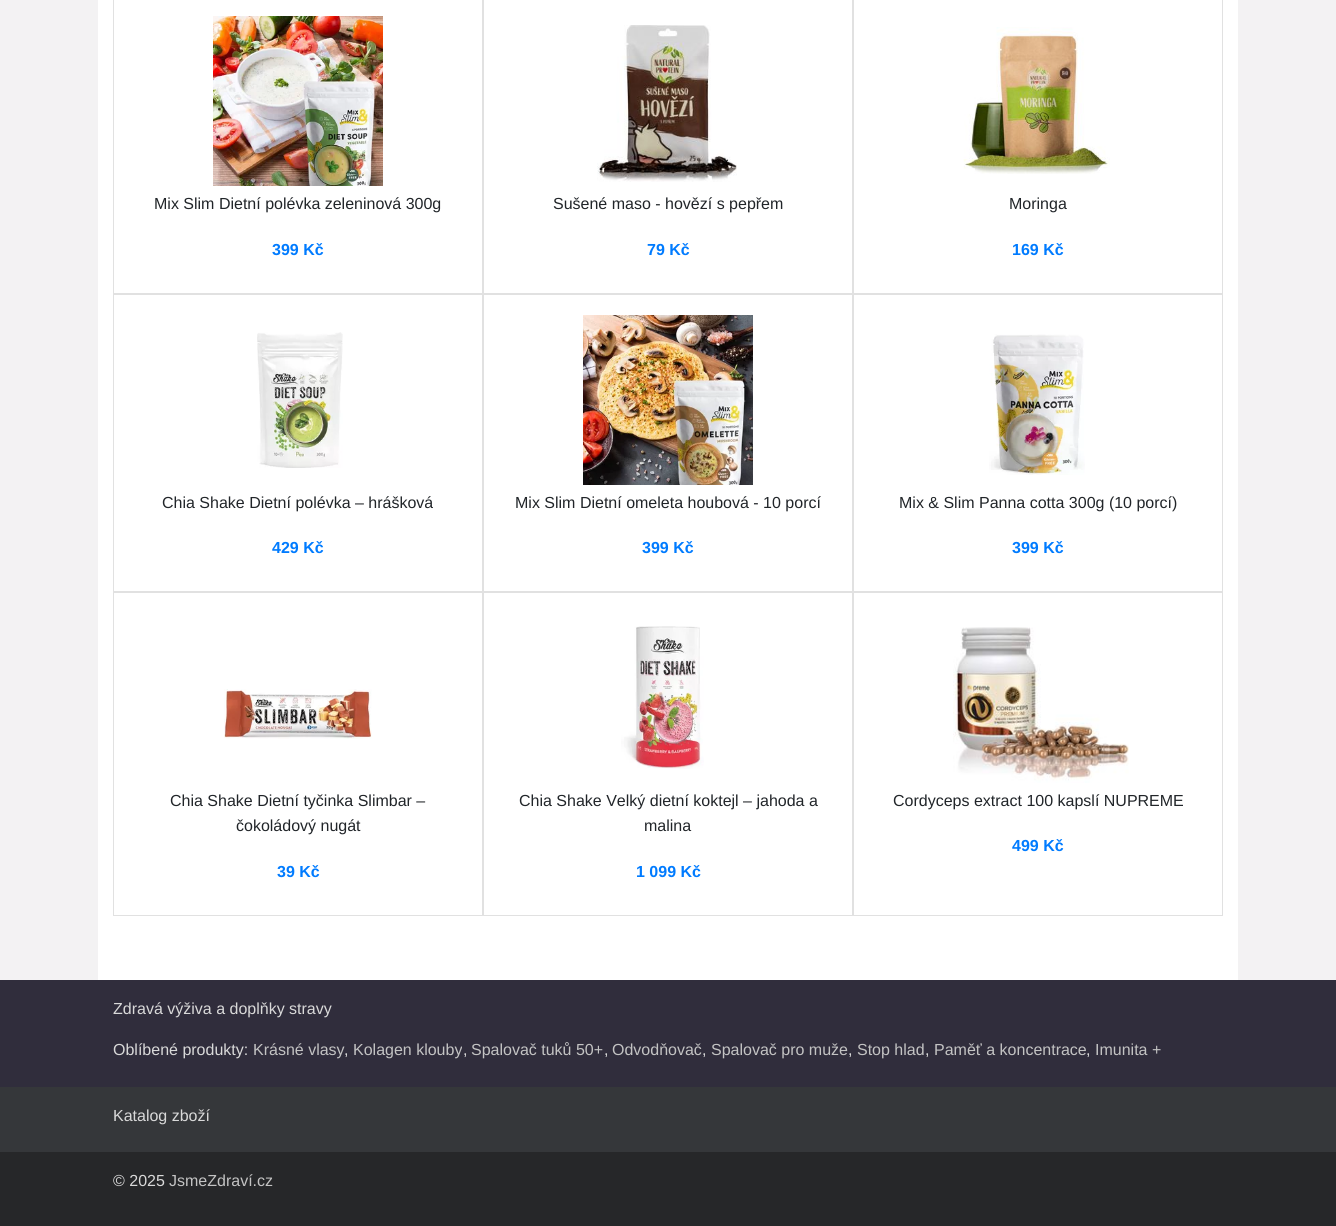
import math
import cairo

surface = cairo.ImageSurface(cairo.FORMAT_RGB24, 1336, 1226)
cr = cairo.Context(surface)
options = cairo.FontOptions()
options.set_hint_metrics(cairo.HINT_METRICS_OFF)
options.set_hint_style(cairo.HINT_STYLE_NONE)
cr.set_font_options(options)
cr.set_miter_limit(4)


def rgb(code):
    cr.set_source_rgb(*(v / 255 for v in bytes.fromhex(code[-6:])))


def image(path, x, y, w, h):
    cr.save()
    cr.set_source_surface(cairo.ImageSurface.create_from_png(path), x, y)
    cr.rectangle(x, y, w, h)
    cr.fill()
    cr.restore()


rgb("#f3f2f3")
cr.paint()
rgb("#ffffff")
cr.rectangle(98, 0, 1140, 980)
cr.fill()
cr.rectangle(113.5, -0.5, 369, 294)
rgb("#e1e1e1")
cr.set_line_width(1)
cr.stroke()
image("img/1.png", 213, 16, 170, 170)
cr.rectangle(483.5, -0.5, 369, 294)
cr.stroke()
image("img/2.png", 597, 25, 140, 157)
cr.rectangle(853.5, -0.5, 369, 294)
cr.stroke()
image("img/3.png", 963, 27, 147, 147)
cr.rectangle(113.5, 294.5, 369, 297)
cr.stroke()
image("img/4.png", 257, 332, 86, 136)
cr.rectangle(483.5, 294.5, 369, 297)
cr.stroke()
image("img/5.png", 583, 315, 170, 170)
cr.rectangle(853.5, 294.5, 369, 297)
cr.stroke()
image("img/6.png", 989, 334, 96, 141)
cr.rectangle(113.5, 592.5, 369, 323)
cr.stroke()
image("img/7.png", 224, 689, 148, 50)
cr.rectangle(483.5, 592.5, 369, 323)
cr.stroke()
image("img/8.png", 621, 626, 83, 143)
cr.rectangle(853.5, 592.5, 369, 323)
cr.stroke()
image("img/9.png", 953, 627, 176, 156)
for x, y, w, h, color in [
    (0, 980, 1336, 107, "#302d3c"),
    (0, 1087, 1336, 65, "#35373a"),
    (0, 1152, 1336, 74, "#262729"),
]:
    rgb(color)
    cr.rectangle(x, y, w, h)
    cr.fill()
cr.select_font_face("Liberation Sans")
cr.set_font_size(16)
rgb("#212529")
cr.move_to(154, 209)
cr.show_text("Mix Slim Dietní polévka zeleninová 300g")
cr.select_font_face("Liberation Sans", cairo.FONT_SLANT_NORMAL, cairo.FONT_WEIGHT_BOLD)
rgb("#007bff")
cr.move_to(272, 255)
cr.show_text("399 Kč")
cr.select_font_face("Liberation Sans")
rgb("#212529")
cr.move_to(553, 209)
cr.show_text("Sušené maso - hovězí s pepřem")
cr.select_font_face("Liberation Sans", cairo.FONT_SLANT_NORMAL, cairo.FONT_WEIGHT_BOLD)
rgb("#007bff")
cr.move_to(647, 255)
cr.show_text("79 Kč")
cr.select_font_face("Liberation Sans")
rgb("#212529")
cr.move_to(1009, 209)
cr.show_text("Moringa")
cr.select_font_face("Liberation Sans", cairo.FONT_SLANT_NORMAL, cairo.FONT_WEIGHT_BOLD)
rgb("#007bff")
cr.move_to(1012, 255)
cr.show_text("169 Kč")
cr.select_font_face("Liberation Sans")
rgb("#212529")
cr.move_to(162, 508)
cr.show_text("Chia Shake Dietní polévka – hrášková")
cr.select_font_face("Liberation Sans", cairo.FONT_SLANT_NORMAL, cairo.FONT_WEIGHT_BOLD)
rgb("#007bff")
cr.move_to(272, 553)
cr.show_text("429 Kč")
cr.select_font_face("Liberation Sans")
rgb("#212529")
cr.move_to(515, 508)
cr.show_text("Mix Slim Dietní omeleta houbová - 10 porcí")
cr.select_font_face("Liberation Sans", cairo.FONT_SLANT_NORMAL, cairo.FONT_WEIGHT_BOLD)
rgb("#007bff")
cr.move_to(642, 553)
cr.show_text("399 Kč")
cr.select_font_face("Liberation Sans")
rgb("#212529")
cr.move_to(899, 508)
cr.show_text("Mix & Slim Panna cotta 300g (10 porcí)")
cr.select_font_face("Liberation Sans", cairo.FONT_SLANT_NORMAL, cairo.FONT_WEIGHT_BOLD)
rgb("#007bff")
cr.move_to(1012, 553)
cr.show_text("399 Kč")
cr.select_font_face("Liberation Sans")
rgb("#212529")
cr.move_to(170, 806)
cr.show_text("Chia Shake Dietní tyčinka Slimbar –")
cr.move_to(236, 831)
cr.show_text("čokoládový nugát")
cr.select_font_face("Liberation Sans", cairo.FONT_SLANT_NORMAL, cairo.FONT_WEIGHT_BOLD)
rgb("#007bff")
cr.move_to(277, 877)
cr.show_text("39 Kč")
cr.select_font_face("Liberation Sans")
rgb("#212529")
cr.move_to(519, 806)
cr.show_text("Chia Shake Velký dietní koktejl – jahoda a")
cr.move_to(644, 831)
cr.show_text("malina")
cr.select_font_face("Liberation Sans", cairo.FONT_SLANT_NORMAL, cairo.FONT_WEIGHT_BOLD)
rgb("#007bff")
cr.move_to(636, 877)
cr.show_text("1 099 Kč")
cr.select_font_face("Liberation Sans")
rgb("#212529")
cr.move_to(893, 806)
cr.show_text("Cordyceps extract 100 kapslí NUPREME")
cr.select_font_face("Liberation Sans", cairo.FONT_SLANT_NORMAL, cairo.FONT_WEIGHT_BOLD)
rgb("#007bff")
cr.move_to(1012, 851)
cr.show_text("499 Kč")
cr.select_font_face("Liberation Sans")
rgb("#d9d9d9")
cr.move_to(113, 1014)
cr.show_text("Zdravá výživa a doplňky stravy")
cr.move_to(113, 1055)
cr.show_text("Oblíbené produkty:")
rgb("#c3c3c3")
cr.move_to(253, 1055)
cr.show_text("Krásné vlasy")
rgb("#d9d9d9")
cr.move_to(344, 1055)
cr.show_text(",")
rgb("#c3c3c3")
cr.move_to(353, 1055)
cr.show_text("Kolagen klouby")
rgb("#d9d9d9")
cr.move_to(463, 1055)
cr.show_text(",")
rgb("#c3c3c3")
cr.move_to(471, 1055)
cr.show_text("Spalovač tuků 50+")
rgb("#d9d9d9")
cr.move_to(604, 1055)
cr.show_text(",")
rgb("#c3c3c3")
cr.move_to(612, 1055)
cr.show_text("Odvodňovač")
rgb("#d9d9d9")
cr.move_to(702, 1055)
cr.show_text(",")
rgb("#c3c3c3")
cr.move_to(711, 1055)
cr.show_text("Spalovač pro muže")
rgb("#d9d9d9")
cr.move_to(848, 1055)
cr.show_text(",")
rgb("#c3c3c3")
cr.move_to(857, 1055)
cr.show_text("Stop hlad")
rgb("#d9d9d9")
cr.move_to(925, 1055)
cr.show_text(",")
rgb("#c3c3c3")
cr.move_to(934, 1055)
cr.show_text("Paměť a koncentrace")
rgb("#d9d9d9")
cr.move_to(1086, 1055)
cr.show_text(",")
rgb("#c3c3c3")
cr.move_to(1095, 1055)
cr.show_text("Imunita +")
rgb("#d9d9d9")
cr.move_to(113, 1121)
cr.show_text("Katalog zboží")
cr.move_to(113, 1186)
cr.show_text("© 2025")
rgb("#c3c3c3")
cr.move_to(169, 1186)
cr.show_text("JsmeZdraví.cz")
surface.write_to_png("page.png")
